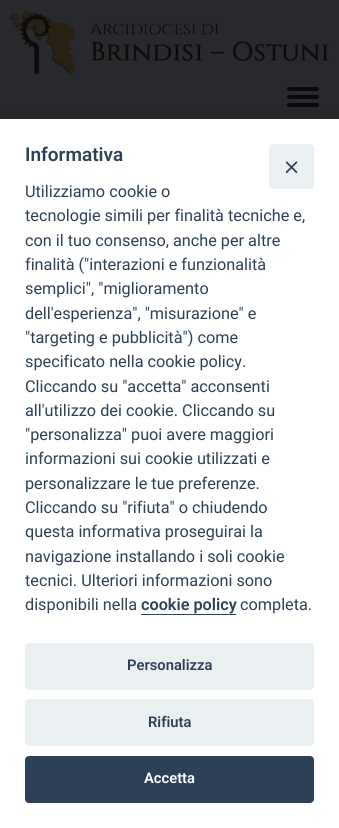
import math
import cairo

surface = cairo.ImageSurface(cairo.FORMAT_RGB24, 339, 828)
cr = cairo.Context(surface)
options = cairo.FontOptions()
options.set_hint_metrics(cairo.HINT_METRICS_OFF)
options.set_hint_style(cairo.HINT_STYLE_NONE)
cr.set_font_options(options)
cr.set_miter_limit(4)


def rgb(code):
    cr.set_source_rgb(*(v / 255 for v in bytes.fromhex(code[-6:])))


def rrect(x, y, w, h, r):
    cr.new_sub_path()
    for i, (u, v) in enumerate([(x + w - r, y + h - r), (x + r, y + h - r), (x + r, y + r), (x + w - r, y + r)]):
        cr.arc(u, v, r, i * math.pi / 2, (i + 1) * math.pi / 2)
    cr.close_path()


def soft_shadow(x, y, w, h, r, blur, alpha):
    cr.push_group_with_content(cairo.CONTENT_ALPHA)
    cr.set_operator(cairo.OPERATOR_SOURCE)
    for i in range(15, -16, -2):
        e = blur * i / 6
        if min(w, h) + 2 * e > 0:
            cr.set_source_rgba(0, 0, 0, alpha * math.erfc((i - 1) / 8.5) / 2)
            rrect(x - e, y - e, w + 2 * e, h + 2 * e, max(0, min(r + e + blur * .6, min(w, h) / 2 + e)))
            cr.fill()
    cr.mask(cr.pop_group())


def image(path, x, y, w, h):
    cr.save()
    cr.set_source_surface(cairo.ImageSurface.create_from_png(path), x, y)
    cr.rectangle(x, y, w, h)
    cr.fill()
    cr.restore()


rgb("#282a2b")
cr.paint()
cr.save()
cr.set_fill_rule(cairo.FILL_RULE_EVEN_ODD)
cr.new_path()
cr.move_to(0, 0)
cr.line_to(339, 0)
cr.line_to(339, 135)
cr.line_to(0, 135)
cr.close_path()
cr.move_to(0, 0)
cr.line_to(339, 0)
cr.line_to(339, 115)
cr.curve_to(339, 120.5, 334.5, 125, 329, 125)
cr.line_to(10, 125)
cr.curve_to(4.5, 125, 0, 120.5, 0, 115)
cr.close_path()
cr.clip()
rgb("#030507")
soft_shadow(1, 3, 337, 123, 9, 2.5, 0.75)
cr.restore()
cr.set_source_rgba(0.165, 0.169, 0.176, 0.8)
cr.new_path()
cr.move_to(0, 0)
cr.line_to(339, 0)
cr.line_to(339, 115)
cr.curve_to(339, 120.5, 334.5, 125, 329, 125)
cr.line_to(10, 125)
cr.curve_to(4.5, 125, 0, 120.5, 0, 115)
cr.close_path()
cr.fill()
image("img/1.png", 10, 10, 319, 65)
rgb("#090a0c")
rrect(287, 87, 32, 4, 2)
cr.fill()
rrect(287, 95, 32, 4, 2)
cr.fill()
rrect(287, 103, 32, 4, 2)
cr.fill()
rgb("#020203")
soft_shadow(0, 130, 339, 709, 0, 17, 0.28)
rgb("#ffffff")
cr.rectangle(0, 119, 339, 709)
cr.fill()
rgb("#eaeff2")
rrect(269, 144, 45, 45, 4)
cr.fill()
rgb("#2d4156")
cr.new_path()
cr.move_to(297, 161.5)
cr.curve_to(297.5, 162, 297.5, 162.5, 297, 163)
cr.line_to(287, 173)
cr.curve_to(287, 173, 286.5, 173, 286, 173)
cr.curve_to(286, 172.5, 286, 172, 286, 171.5)
cr.line_to(296, 161.5)
cr.curve_to(296.5, 161.5, 297, 161.5, 297, 161.5)
cr.close_path()
cr.fill()
cr.new_path()
cr.move_to(286, 161.5)
cr.curve_to(286.5, 161.5, 287, 161.5, 287, 161.5)
cr.line_to(297, 171.5)
cr.curve_to(297.5, 172, 297.5, 172.5, 297, 173)
cr.curve_to(297, 173, 296.5, 173, 296, 173)
cr.line_to(286, 163)
cr.curve_to(286, 162.5, 286, 162, 286, 161.5)
cr.close_path()
cr.fill()
cr.rectangle(141, 614, 95, 1)
cr.fill()
rgb("#eaeff2")
rrect(25, 643, 289, 47, 4)
cr.fill()
rrect(25, 699, 289, 47, 4)
cr.fill()
rgb("#2d4156")
rrect(25, 756, 289, 47, 4)
cr.fill()
cr.select_font_face("Roboto SemiBold")
cr.set_font_size(19)
cr.move_to(25, 161)
cr.show_text("Informativa")
cr.select_font_face("Roboto")
cr.set_font_size(16.25)
for x, y, s in [
    (25, 197, "Utilizziamo cookie o"),
    (25, 221, "tecnologie simili per finalità tecniche e,"),
    (25, 246, "con il tuo consenso, anche per altre"),
    (25, 270, "finalità (\"interazioni e funzionalità"),
    (25, 294, "semplici\", \"miglioramento"),
    (25, 319, "dell'esperienza\", \"misurazione\" e"),
    (25, 343, "\"targeting e pubblicità\") come"),
    (25, 367, "specificato nella cookie policy."),
    (25, 392, "Cliccando su \"accetta\" acconsenti"),
    (25, 416, "all'utilizzo dei cookie. Cliccando su"),
    (25, 440, "\"personalizza\" puoi avere maggiori"),
    (25, 464, "informazioni sui cookie utilizzati e"),
    (25, 489, "personalizzare le tue preferenze."),
    (25, 513, "Cliccando su \"rifiuta\" o chiudendo"),
    (25, 537, "questa informativa proseguirai la"),
    (25, 562, "navigazione installando i soli cookie"),
    (25, 586, "tecnici. Ulteriori informazioni sono"),
    (25, 610, "disponibili nella"),
]:
    cr.move_to(x, y)
    cr.show_text(s)
cr.select_font_face("Roboto SemiBold")
cr.move_to(141, 610)
cr.show_text("cookie policy")
cr.select_font_face("Roboto")
cr.move_to(240, 610)
cr.show_text("completa.")
cr.select_font_face("Roboto SemiBold")
cr.set_font_size(14.75)
cr.move_to(127, 670)
cr.show_text("Personalizza")
cr.move_to(148, 727)
cr.show_text("Rifiuta")
rgb("#ffffff")
cr.move_to(144, 783)
cr.show_text("Accetta")
surface.write_to_png("page.png")
